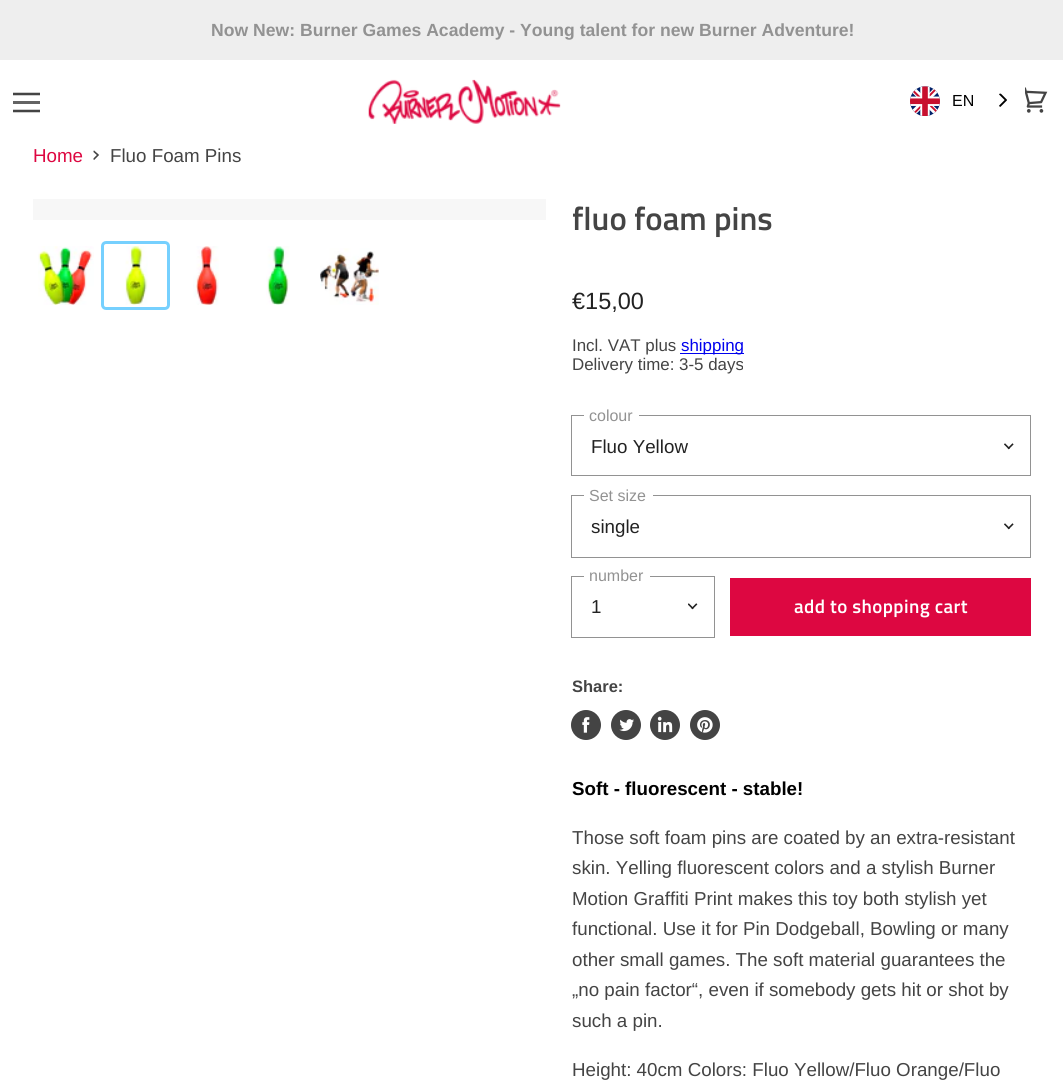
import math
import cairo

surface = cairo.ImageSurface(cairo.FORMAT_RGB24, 1063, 1082)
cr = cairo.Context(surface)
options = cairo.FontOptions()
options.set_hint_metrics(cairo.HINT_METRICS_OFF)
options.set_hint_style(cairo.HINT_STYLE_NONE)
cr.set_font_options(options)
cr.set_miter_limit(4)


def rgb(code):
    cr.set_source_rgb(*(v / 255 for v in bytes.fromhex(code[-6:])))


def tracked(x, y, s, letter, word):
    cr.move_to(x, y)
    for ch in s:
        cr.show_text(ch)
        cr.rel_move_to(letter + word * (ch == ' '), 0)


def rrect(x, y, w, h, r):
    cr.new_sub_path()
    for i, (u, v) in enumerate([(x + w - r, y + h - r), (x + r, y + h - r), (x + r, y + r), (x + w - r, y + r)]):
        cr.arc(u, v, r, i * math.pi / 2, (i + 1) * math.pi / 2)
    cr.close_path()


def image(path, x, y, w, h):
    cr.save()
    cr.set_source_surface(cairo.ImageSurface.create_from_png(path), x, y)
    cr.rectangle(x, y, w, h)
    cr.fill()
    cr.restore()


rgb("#ffffff")
cr.paint()
rgb("#eeeeee")
cr.rectangle(0, 0, 1063, 60)
cr.fill()
cr.save()
cr.rectangle(13, 91, 27, 23)
cr.clip()
cr.new_path()
cr.move_to(39, 94)
cr.line_to(14, 94)
rgb("#444444")
cr.set_line_width(2.5)
cr.set_line_cap(cairo.LINE_CAP_SQUARE)
cr.set_line_join(cairo.LINE_JOIN_ROUND)
cr.stroke()
cr.restore()
rgb("#636363")
cr.rectangle(13, 101, 27, 3)
cr.fill()
cr.save()
cr.rectangle(13, 91, 27, 23)
cr.clip()
cr.new_path()
cr.move_to(39, 111)
cr.line_to(14, 111)
rgb("#444444")
cr.set_line_width(2.5)
cr.set_line_cap(cairo.LINE_CAP_SQUARE)
cr.set_line_join(cairo.LINE_JOIN_ROUND)
cr.stroke()
cr.restore()
image("img/1.png", 368, 79, 193, 45)
image("img/2.png", 910, 86, 30, 30)
image("img/3.png", 999, 93, 8, 14)
image("img/4.png", 1025, 87, 23, 26)
cr.save()
cr.new_path()
cr.move_to(93.5, 160)
cr.line_to(93.5, 150)
cr.line_to(99.5, 150)
cr.line_to(99.5, 160)
cr.close_path()
cr.clip()
cr.new_path()
cr.move_to(93.5, 159.5)
cr.line_to(98, 155)
cr.line_to(93.5, 151)
rgb("#444444")
cr.set_line_width(1.6)
cr.stroke()
cr.restore()
rgb("#f7f7f7")
cr.rectangle(33, 199, 513, 21)
cr.fill()
image("img/5.png", 38, 246, 56, 59)
rrect(102.5, 242.5, 66, 66, 3.5)
rgb("#76d0fe")
cr.set_line_width(3)
cr.stroke()
image("img/6.png", 125, 246, 23, 59)
image("img/7.png", 193, 246, 26, 59)
image("img/8.png", 266, 246, 24, 59)
image("img/9.png", 320, 248, 59, 57)
rgb("#0000ee")
cr.rectangle(680, 353, 64, 1)
cr.fill()
cr.rectangle(571.5, 415.5, 459, 60)
rgb("#929292")
cr.set_line_width(1)
cr.stroke()
rgb("#ffffff")
cr.rectangle(584, 415, 55, 1)
cr.fill()
image("img/10.png", 1004, 443, 10, 7)
cr.rectangle(571.5, 495.5, 459, 62)
rgb("#929292")
cr.stroke()
rgb("#ffffff")
cr.rectangle(584, 495, 69, 1)
cr.fill()
image("img/10.png", 1004, 523, 10, 7)
cr.rectangle(571.5, 576.5, 143, 61)
rgb("#929292")
cr.stroke()
rgb("#ffffff")
cr.rectangle(584, 576, 66, 1)
cr.fill()
image("img/11.png", 688, 603, 10, 7)
rgb("#dd0741")
cr.rectangle(730, 578, 301, 58)
cr.fill()
rgb("#444444")
cr.arc(586, 725, 15, 0, 2 * math.pi)
cr.fill()
image("img/12.png", 582, 717, 8, 16)
cr.arc(626, 725, 15, 0, 2 * math.pi)
cr.fill()
image("img/13.png", 619, 719, 15, 13)
cr.arc(665, 725, 15, 0, 2 * math.pi)
cr.fill()
image("img/14.png", 657, 716, 16, 17)
cr.arc(705, 725, 15, 0, 2 * math.pi)
cr.fill()
image("img/15.png", 697, 717, 16, 16)
cr.select_font_face("Liberation Sans", cairo.FONT_SLANT_NORMAL, cairo.FONT_WEIGHT_BOLD)
cr.set_font_size(17.6)
rgb("#929292")
cr.move_to(211, 36)
cr.show_text("Now New: Burner Games Academy - Young talent for new Burner Adventure!")
cr.select_font_face("Liberation Sans")
cr.set_font_size(16)
rgb("#000000")
cr.move_to(952, 106)
cr.show_text("EN")
cr.set_font_size(18.75)
rgb("#dd0741")
cr.move_to(33, 162)
cr.show_text("Home")
rgb("#444444")
cr.move_to(110, 162)
cr.show_text("Fluo Foam Pins")
cr.select_font_face("Titillium Web SemiBold")
cr.set_font_size(32.75)
cr.move_to(572, 230)
cr.show_text("fluo foam pins")
cr.select_font_face("Liberation Sans")
cr.set_font_size(23.5)
rgb("#222222")
cr.move_to(572, 309)
cr.show_text("€15,00")
cr.set_font_size(16.9)
rgb("#444444")
cr.move_to(572, 351)
cr.show_text("Incl. VAT plus")
rgb("#0000ee")
cr.move_to(681, 351)
cr.show_text("shipping")
rgb("#444444")
cr.move_to(572, 370)
cr.show_text("Delivery time: 3-5 days")
cr.set_font_size(16)
rgb("#929292")
cr.move_to(589, 421)
cr.show_text("colour")
cr.set_font_size(18.75)
rgb("#222222")
cr.move_to(591, 453)
cr.show_text("Fluo Yellow")
cr.set_font_size(16)
rgb("#929292")
cr.move_to(589, 501)
cr.show_text("Set size")
cr.set_font_size(18.75)
rgb("#222222")
cr.move_to(591, 533)
cr.show_text("single")
cr.set_font_size(16)
rgb("#929292")
cr.move_to(589, 581)
cr.show_text("number")
cr.set_font_size(18.75)
rgb("#222222")
cr.move_to(591, 613)
cr.show_text("1")
cr.select_font_face("Titillium Web SemiBold")
cr.set_font_size(19)
rgb("#ffffff")
tracked(794, 613, "add to shopping cart", 0.4, 0)
cr.select_font_face("Liberation Sans", cairo.FONT_SLANT_NORMAL, cairo.FONT_WEIGHT_BOLD)
cr.set_font_size(16.5)
rgb("#444444")
cr.move_to(572, 692)
cr.show_text("Share:")
cr.set_font_size(18.75)
rgb("#000000")
cr.move_to(572, 795)
cr.show_text("Soft - fluorescent - stable!")
cr.select_font_face("Liberation Sans")
rgb("#444444")
for x, y, s in [
    (572, 844, "Those soft foam pins are coated by an extra-resistant"),
    (572, 874, "skin. Yelling fluorescent colors and a stylish Burner"),
    (572, 905, "Motion Graffiti Print makes this toy both stylish yet"),
    (572, 935, "functional. Use it for Pin Dodgeball, Bowling or many"),
    (572, 966, "other small games. The soft material guarantees the"),
    (572, 996, "„no pain factor“, even if somebody gets hit or shot by"),
    (572, 1027, "such a pin."),
    (572, 1076, "Height: 40cm Colors: Fluo Yellow/Fluo Orange/Fluo"),
]:
    cr.move_to(x, y)
    cr.show_text(s)
surface.write_to_png("page.png")
